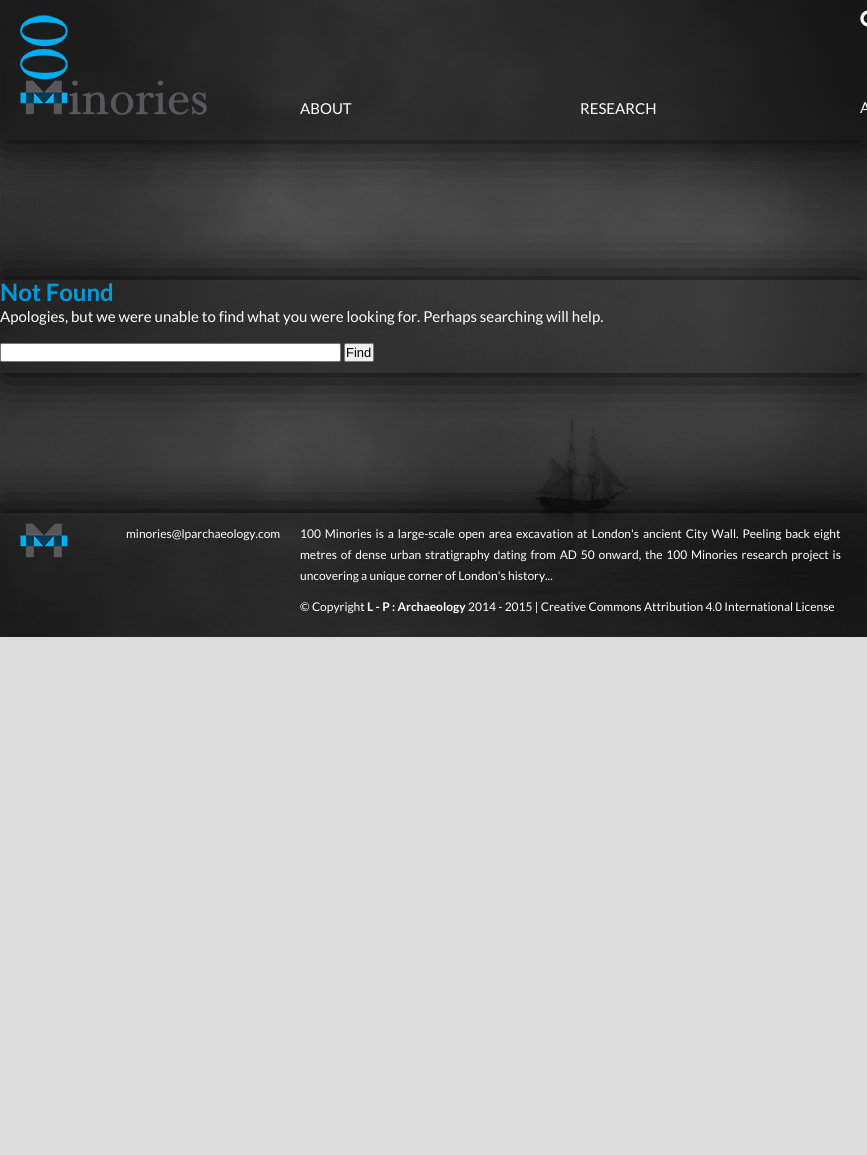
import math
import cairo

surface = cairo.ImageSurface(cairo.FORMAT_RGB24, 867, 1155)
cr = cairo.Context(surface)
options = cairo.FontOptions()
options.set_hint_metrics(cairo.HINT_METRICS_OFF)
options.set_hint_style(cairo.HINT_STYLE_NONE)
cr.set_font_options(options)
cr.set_miter_limit(4)


def rgb(code):
    cr.set_source_rgb(*(v / 255 for v in bytes.fromhex(code[-6:])))


def tracked(x, y, s, letter, word):
    cr.move_to(x, y)
    for ch in s:
        cr.show_text(ch)
        cr.rel_move_to(letter + word * (ch == ' '), 0)


def rrect(x, y, w, h, r):
    cr.new_sub_path()
    for i, (u, v) in enumerate([(x + w - r, y + h - r), (x + r, y + h - r), (x + r, y + r), (x + w - r, y + r)]):
        cr.arc(u, v, r, i * math.pi / 2, (i + 1) * math.pi / 2)
    cr.close_path()


def soft_shadow(x, y, w, h, r, blur, alpha):
    cr.push_group_with_content(cairo.CONTENT_ALPHA)
    cr.set_operator(cairo.OPERATOR_SOURCE)
    for i in range(15, -16, -2):
        e = blur * i / 6
        if min(w, h) + 2 * e > 0:
            cr.set_source_rgba(0, 0, 0, alpha * math.erfc((i - 1) / 8.5) / 2)
            rrect(x - e, y - e, w + 2 * e, h + 2 * e, max(0, min(r + e + blur * .6, min(w, h) / 2 + e)))
            cr.fill()
    cr.mask(cr.pop_group())


def image(path, x, y, w, h):
    cr.save()
    cr.set_source_surface(cairo.ImageSurface.create_from_png(path), x, y)
    cr.rectangle(x, y, w, h)
    cr.fill()
    cr.restore()


rgb("#dcdcdc")
cr.paint()
image("img/1.png", 0, 0, 867, 637)
cr.save()
cr.rectangle(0, 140, 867, 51)
cr.clip()
rgb("#000000")
soft_shadow(0, 0, 867, 140, 0, 25, 1)
cr.restore()
cr.set_source_rgba(0, 0, 0, 0.5)
cr.rectangle(0, 0, 867, 140)
cr.fill()
image("img/2.png", 20, 15, 187, 100)
cr.arc(868.5, 18.5, 6.5, 0, 2 * math.pi)
rgb("#ffffff")
cr.set_line_width(3.3)
cr.stroke()
cr.set_source_rgba(0, 0, 0, 0.2)
cr.rectangle(0, 140, 867, 140)
cr.fill()
cr.save()
cr.set_fill_rule(cairo.FILL_RULE_EVEN_ODD)
cr.new_path()
cr.move_to(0, 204)
cr.line_to(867, 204)
cr.line_to(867, 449)
cr.line_to(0, 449)
cr.close_path()
cr.move_to(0, 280)
cr.line_to(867, 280)
cr.line_to(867, 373)
cr.line_to(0, 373)
cr.close_path()
cr.clip()
rgb("#000000")
soft_shadow(0, 280, 867, 93, 0, 25, 1)
cr.restore()
cr.set_source_rgba(0, 0, 0, 0.4)
cr.rectangle(0, 280, 867, 93)
cr.fill()
rgb("#ffffff")
rrect(0.5, 343.5, 340, 18, 1.5)
cr.fill_preserve()
rgb("#767676")
cr.set_line_width(1)
cr.stroke()
rgb("#efefef")
rrect(344.5, 343.5, 29, 18, 1.5)
cr.fill_preserve()
rgb("#767676")
cr.stroke()
cr.set_source_rgba(0, 0, 0, 0.2)
cr.rectangle(0, 373, 867, 140)
cr.fill()
cr.save()
cr.rectangle(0, 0, 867, 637)
cr.clip()
cr.rectangle(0, 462, 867, 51)
cr.clip()
rgb("#000000")
soft_shadow(0, 513, 867, 124, 0, 25, 1)
cr.restore()
cr.set_source_rgba(0, 0, 0, 0.4)
cr.rectangle(0, 513, 867, 124)
cr.fill()
image("img/3.png", 20, 523, 48, 35)
cr.select_font_face("Lato")
cr.set_font_size(15)
rgb("#ffffff")
for x, y, s in [
    (300, 114, "ABOUT"),
    (580, 114, "RESEARCH"),
    (860, 113, "A"),
]:
    cr.move_to(x, y)
    cr.show_text(s)
cr.select_font_face("Lato", cairo.FONT_SLANT_NORMAL, cairo.FONT_WEIGHT_BOLD)
cr.set_font_size(24)
rgb("#009bdb")
cr.move_to(0, 301)
cr.show_text("Not Found")
cr.select_font_face("Lato")
cr.set_font_size(15)
rgb("#ffffff")
cr.move_to(0, 322)
cr.show_text("Apologies, but we were unable to find what you were looking for. Perhaps searching will help.")
cr.select_font_face("Liberation Sans")
cr.set_font_size(13)
rgb("#000000")
cr.move_to(346, 357)
cr.show_text("Find")
cr.select_font_face("Lato")
cr.set_font_size(12)
rgb("#ffffff")
cr.move_to(126, 538)
cr.show_text("minories@lparchaeology.com")
tracked(300, 538, "100 Minories is a large-scale open area excavation at London's ancient City Wall. Peeling back eight", 0, 1.6)
tracked(300, 559, "metres of dense urban stratigraphy dating from AD 50 onward, the 100 Minories research project is", 0, 1.5)
cr.move_to(300, 580)
cr.show_text("uncovering a unique corner of London's history...")
cr.move_to(300, 611)
cr.show_text("© Copyright")
cr.select_font_face("Lato", cairo.FONT_SLANT_NORMAL, cairo.FONT_WEIGHT_BOLD)
cr.move_to(367, 611)
cr.show_text("L - P : Archaeology")
cr.select_font_face("Lato")
cr.move_to(468, 611)
cr.show_text("2014 - 2015 | Creative Commons Attribution 4.0 International License")
surface.write_to_png("page.png")
